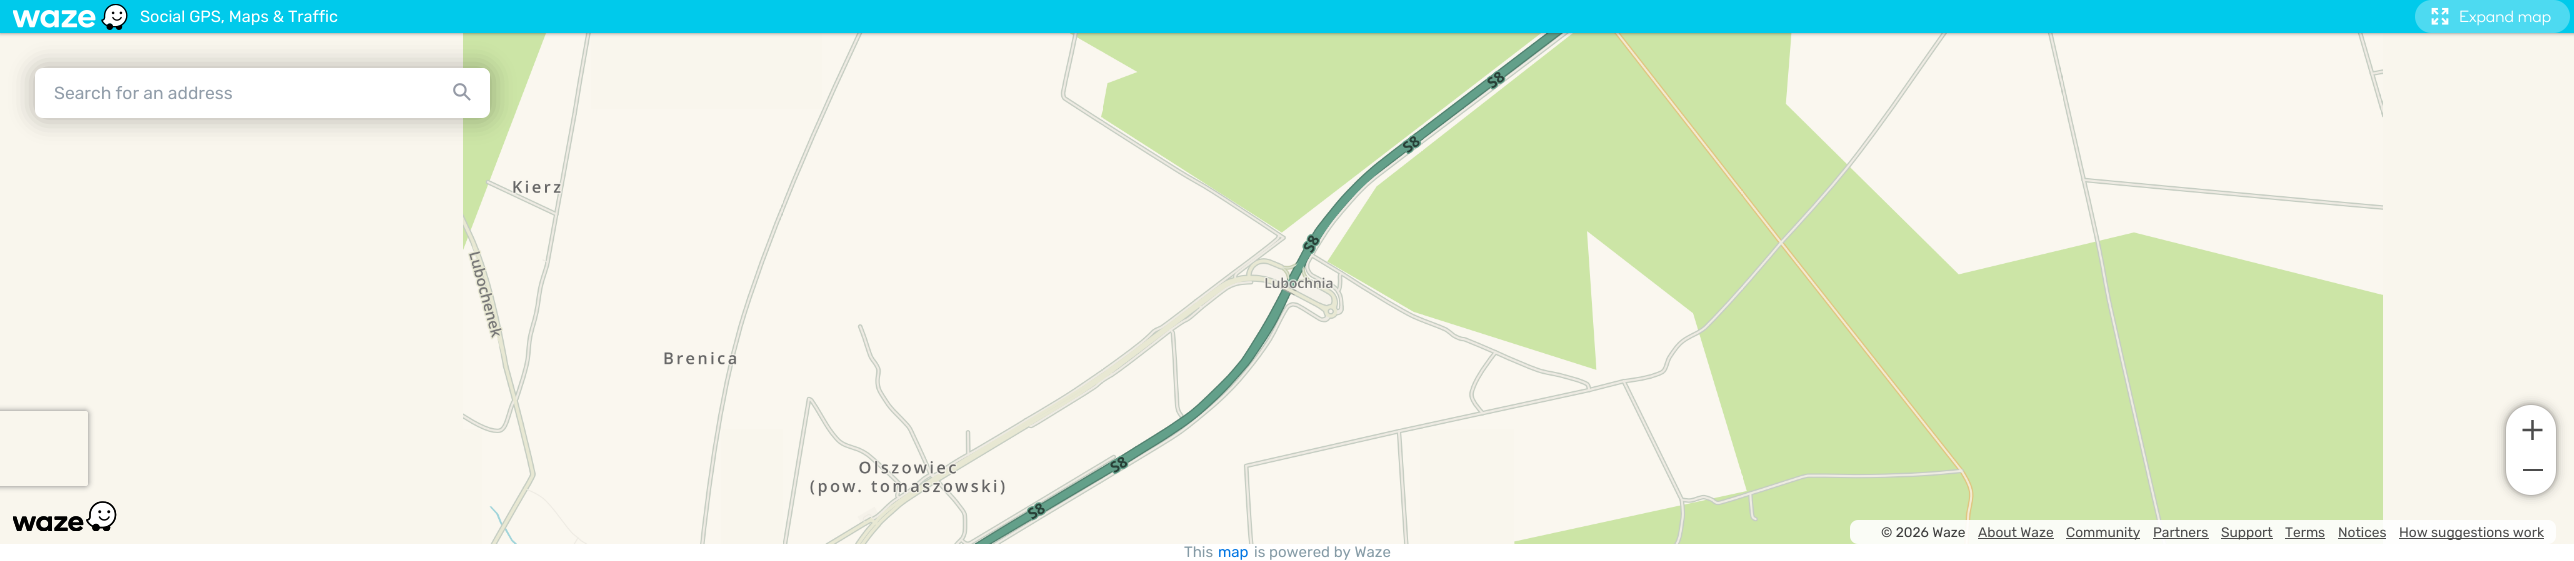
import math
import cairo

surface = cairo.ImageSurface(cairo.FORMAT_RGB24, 2574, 561)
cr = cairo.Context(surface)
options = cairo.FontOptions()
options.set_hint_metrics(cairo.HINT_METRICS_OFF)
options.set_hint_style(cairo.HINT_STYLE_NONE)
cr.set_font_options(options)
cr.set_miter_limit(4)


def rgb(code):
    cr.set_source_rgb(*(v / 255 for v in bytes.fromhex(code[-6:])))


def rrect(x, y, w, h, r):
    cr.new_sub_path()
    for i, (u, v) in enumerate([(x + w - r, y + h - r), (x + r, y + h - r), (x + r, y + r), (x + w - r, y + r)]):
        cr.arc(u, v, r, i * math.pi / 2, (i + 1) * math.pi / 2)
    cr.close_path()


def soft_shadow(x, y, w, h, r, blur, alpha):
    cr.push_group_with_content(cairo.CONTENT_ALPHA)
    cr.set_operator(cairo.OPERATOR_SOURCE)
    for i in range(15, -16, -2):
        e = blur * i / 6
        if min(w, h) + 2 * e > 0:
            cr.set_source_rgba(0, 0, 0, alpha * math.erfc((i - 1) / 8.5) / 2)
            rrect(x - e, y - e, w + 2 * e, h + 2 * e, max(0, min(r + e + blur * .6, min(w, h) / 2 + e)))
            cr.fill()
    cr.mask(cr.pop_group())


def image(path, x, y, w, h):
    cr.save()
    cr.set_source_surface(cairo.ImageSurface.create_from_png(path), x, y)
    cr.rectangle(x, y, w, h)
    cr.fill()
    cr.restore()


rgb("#ffffff")
cr.paint()
rgb("#f9f6ed")
cr.rectangle(0, 33, 2574, 511)
cr.fill()
image("img/3.png", 463, 33, 128, 76)
image("img/4.png", 822, 33, 281, 76)
image("img/5.png", 1103, 33, 320, 76)
image("img/6.png", 1423, 33, 320, 76)
image("img/7.png", 1743, 33, 320, 76)
image("img/8.png", 2063, 33, 320, 76)
rgb("#000000")
soft_shadow(0, 0, 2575, 33, 0, 2, 0.5)
image("img/9.png", 463, 109, 320, 320)
soft_shadow(35, 68, 455, 50, 8, 12.5, 0.3)
rgb("#00caeb")
cr.rectangle(0, 0, 2574, 33)
cr.fill()
image("img/1.png", 13, 4, 115, 26)
rgb("#4ddaf1")
rrect(2415, 0, 155, 33, 16.5)
cr.fill()
image("img/2.png", 2431, 7, 18, 18)
cr.save()
cr.set_fill_rule(cairo.FILL_RULE_EVEN_ODD)
cr.new_path()
cr.move_to(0, 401)
cr.line_to(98, 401)
cr.line_to(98, 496)
cr.line_to(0, 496)
cr.close_path()
cr.move_to(-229.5, 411)
cr.line_to(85.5, 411)
cr.curve_to(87, 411, 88, 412, 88, 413.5)
cr.line_to(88, 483.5)
cr.curve_to(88, 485, 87, 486, 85.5, 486)
cr.line_to(-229.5, 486)
cr.curve_to(-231, 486, -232, 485, -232, 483.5)
cr.line_to(-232, 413.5)
cr.curve_to(-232, 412, -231, 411, -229.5, 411)
cr.close_path()
cr.clip()
rgb("#808080")
soft_shadow(-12, 411, 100, 75, 2.5, 3, 1)
cr.restore()
image("img/10.png", 783, 109, 320, 320)
image("img/11.png", 1103, 109, 320, 320)
image("img/12.png", 1423, 109, 320, 320)
image("img/13.png", 1743, 109, 320, 320)
image("img/14.png", 2063, 109, 320, 320)
image("img/15.png", 482, 429, 239, 115)
image("img/16.png", 783, 429, 320, 115)
image("img/17.png", 1103, 429, 317, 115)
image("img/18.png", 1514, 429, 229, 115)
image("img/19.png", 1743, 429, 320, 115)
image("img/20.png", 2063, 429, 320, 115)
rgb("#ffffff")
rrect(35, 68, 455, 50, 8)
cr.fill()
gradient = cairo.LinearGradient(428, 91, 490, 91)
gradient.add_color_stop_rgba(0, 1, 1, 1, 0)
gradient.add_color_stop_rgba(0.25, 1, 1, 1, 1)
gradient.add_color_stop_rgba(1, 1, 1, 1, 1)
cr.set_source(gradient)
rrect(428, 68, 62, 47, 8)
cr.fill()
image("img/21.png", 453, 83, 18, 18)
image("img/22.png", 13, 501, 104, 30)
rgb("#000000")
soft_shadow(2506, 405, 50, 90, 25, 6, 0.3)
soft_shadow(2506, 405, 50, 90, 25, 2.5, 0.3)
rgb("#ffffff")
cr.new_path()
cr.move_to(2531, 405)
cr.curve_to(2545, 405, 2556, 416, 2556, 430)
cr.line_to(2556, 450)
cr.line_to(2506, 450)
cr.line_to(2506, 430)
cr.curve_to(2506, 416, 2517, 405, 2531, 405)
cr.close_path()
cr.fill()
image("img/23.png", 2522, 420, 21, 20)
cr.new_path()
cr.move_to(2506, 450)
cr.line_to(2556, 450)
cr.line_to(2556, 470)
cr.curve_to(2556, 484, 2545, 495, 2531, 495)
cr.curve_to(2517, 495, 2506, 484, 2506, 470)
cr.close_path()
cr.fill()
rgb("#4c4c4c")
cr.rectangle(2523, 469, 20, 2)
cr.fill()
cr.set_source_rgba(1, 1, 1, 0.9)
rrect(1850, 520, 706, 24, 8)
cr.fill()
for x, y, w, h, color in [
    (1978, 538, 76, 1, "#4c4c4c"),
    (2066, 538, 74, 1, "#4c4c4c"),
    (2153, 538, 56, 1, "#4c4c4c"),
    (2221, 538, 52, 1, "#4c4c4c"),
    (2285, 538, 40, 1, "#4c4c4c"),
    (2338, 538, 48, 1, "#4c4c4c"),
    (2399, 538, 145, 1, "#4c4c4c"),
]:
    rgb(color)
    cr.rectangle(x, y, w, h)
    cr.fill()
cr.select_font_face("Rubik")
cr.set_font_size(16.25)
rgb("#ffffff")
cr.move_to(140, 22)
cr.show_text("Social GPS, Maps & Traffic")
cr.select_font_face("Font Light")
cr.move_to(2459, 22)
cr.show_text("Expand map")
cr.select_font_face("Rubik")
cr.set_font_size(17.5)
rgb("#919da9")
cr.move_to(54, 99)
cr.show_text("Search for an address")
cr.set_font_size(13.75)
rgb("#3d3d3d")
cr.move_to(1881, 537)
cr.show_text("© 2026 Waze")
rgb("#4c4c4c")
for x, y, s in [
    (1978, 537, "About Waze"),
    (2066, 537, "Community"),
    (2153, 537, "Partners"),
    (2221, 537, "Support"),
    (2285, 537, "Terms"),
    (2338, 537, "Notices"),
    (2399, 537, "How suggestions work"),
]:
    cr.move_to(x, y)
    cr.show_text(s)
cr.set_font_size(15)
rgb("#859ba6")
cr.move_to(1184, 557)
cr.show_text("This")
rgb("#0075e3")
cr.move_to(1218, 557)
cr.show_text("map")
rgb("#859ba6")
cr.move_to(1254, 557)
cr.show_text("is powered by Waze")
surface.write_to_png("page.png")
